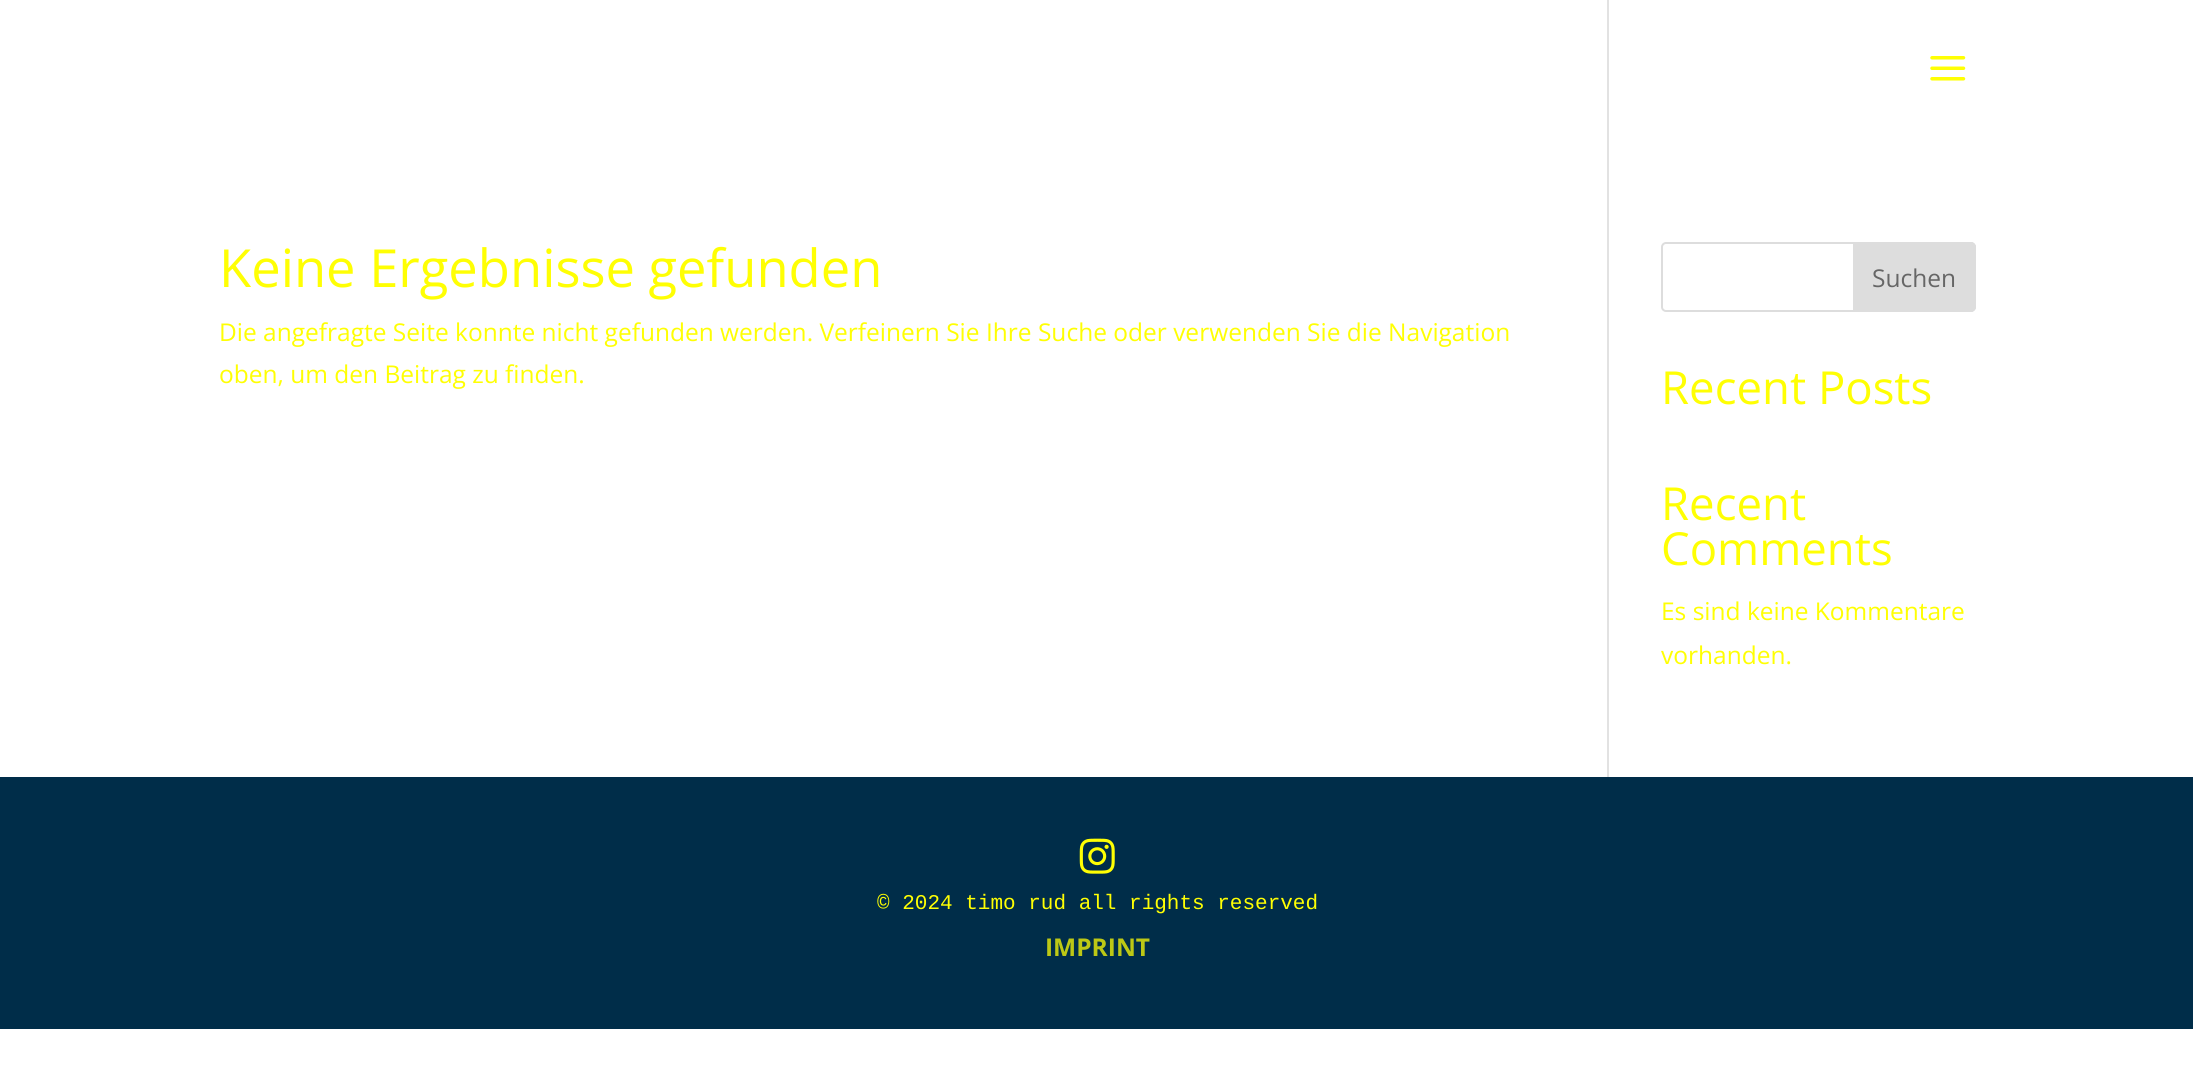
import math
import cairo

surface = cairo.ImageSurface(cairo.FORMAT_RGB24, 2193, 1092)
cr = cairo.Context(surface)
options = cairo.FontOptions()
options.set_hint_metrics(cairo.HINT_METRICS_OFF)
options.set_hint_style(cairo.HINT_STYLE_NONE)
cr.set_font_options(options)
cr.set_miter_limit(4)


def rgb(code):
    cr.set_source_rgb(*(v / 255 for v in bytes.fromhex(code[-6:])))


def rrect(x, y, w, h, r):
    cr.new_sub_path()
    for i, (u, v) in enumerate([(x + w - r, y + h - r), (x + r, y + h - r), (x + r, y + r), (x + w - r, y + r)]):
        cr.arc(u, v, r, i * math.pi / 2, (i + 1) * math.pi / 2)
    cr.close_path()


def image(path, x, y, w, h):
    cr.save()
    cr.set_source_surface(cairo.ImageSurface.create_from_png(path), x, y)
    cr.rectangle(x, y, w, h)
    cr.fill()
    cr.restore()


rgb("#ffffff")
cr.paint()
image("img/1.png", 1930, 56, 36, 25)
rgb("#e2e2e2")
cr.rectangle(1607, 0, 2, 777)
cr.fill()
rrect(1662, 243, 313, 68, 4)
rgb("#dddddd")
cr.stroke()
cr.new_path()
cr.move_to(1854, 243)
cr.line_to(1971, 243)
cr.curve_to(1973, 243, 1975, 245, 1975, 247)
cr.line_to(1975, 307)
cr.curve_to(1975, 309, 1973, 311, 1971, 311)
cr.line_to(1854, 311)
cr.close_path()
cr.fill_preserve()
cr.stroke()
rgb("#002d49")
cr.rectangle(0, 777, 2193, 252)
cr.fill()
image("img/2.png", 1079, 838, 36, 36)
cr.select_font_face("Open Sans")
cr.set_font_size(52.5)
rgb("#ffff03")
cr.move_to(219, 287)
cr.show_text("Keine Ergebnisse gefunden")
cr.set_font_size(24.5)
cr.move_to(219, 341)
cr.show_text("Die angefragte Seite konnte nicht gefunden werden. Verfeinern Sie Ihre Suche oder verwenden Sie die Navigation")
cr.move_to(219, 383)
cr.show_text("oben, um den Beitrag zu finden.")
rgb("#666666")
cr.move_to(1872, 287)
cr.show_text("Suchen")
cr.set_font_size(45.5)
rgb("#ffff03")
for x, y, s in [
    (1661, 404, "Recent Posts"),
    (1661, 520, "Recent"),
    (1661, 565, "Comments"),
]:
    cr.move_to(x, y)
    cr.show_text(s)
cr.set_font_size(24.5)
cr.move_to(1661, 620)
cr.show_text("Es sind keine Kommentare")
cr.move_to(1661, 664)
cr.show_text("vorhanden.")
cr.select_font_face("Liberation Mono")
cr.set_font_size(21)
cr.move_to(877, 909)
cr.show_text("© 2024 timo rud all rights reserved")
cr.select_font_face("Open Sans", cairo.FONT_SLANT_NORMAL, cairo.FONT_WEIGHT_BOLD)
cr.set_font_size(24.5)
rgb("#bdc815")
cr.move_to(1045, 956)
cr.show_text("IMPRINT")
surface.write_to_png("page.png")
